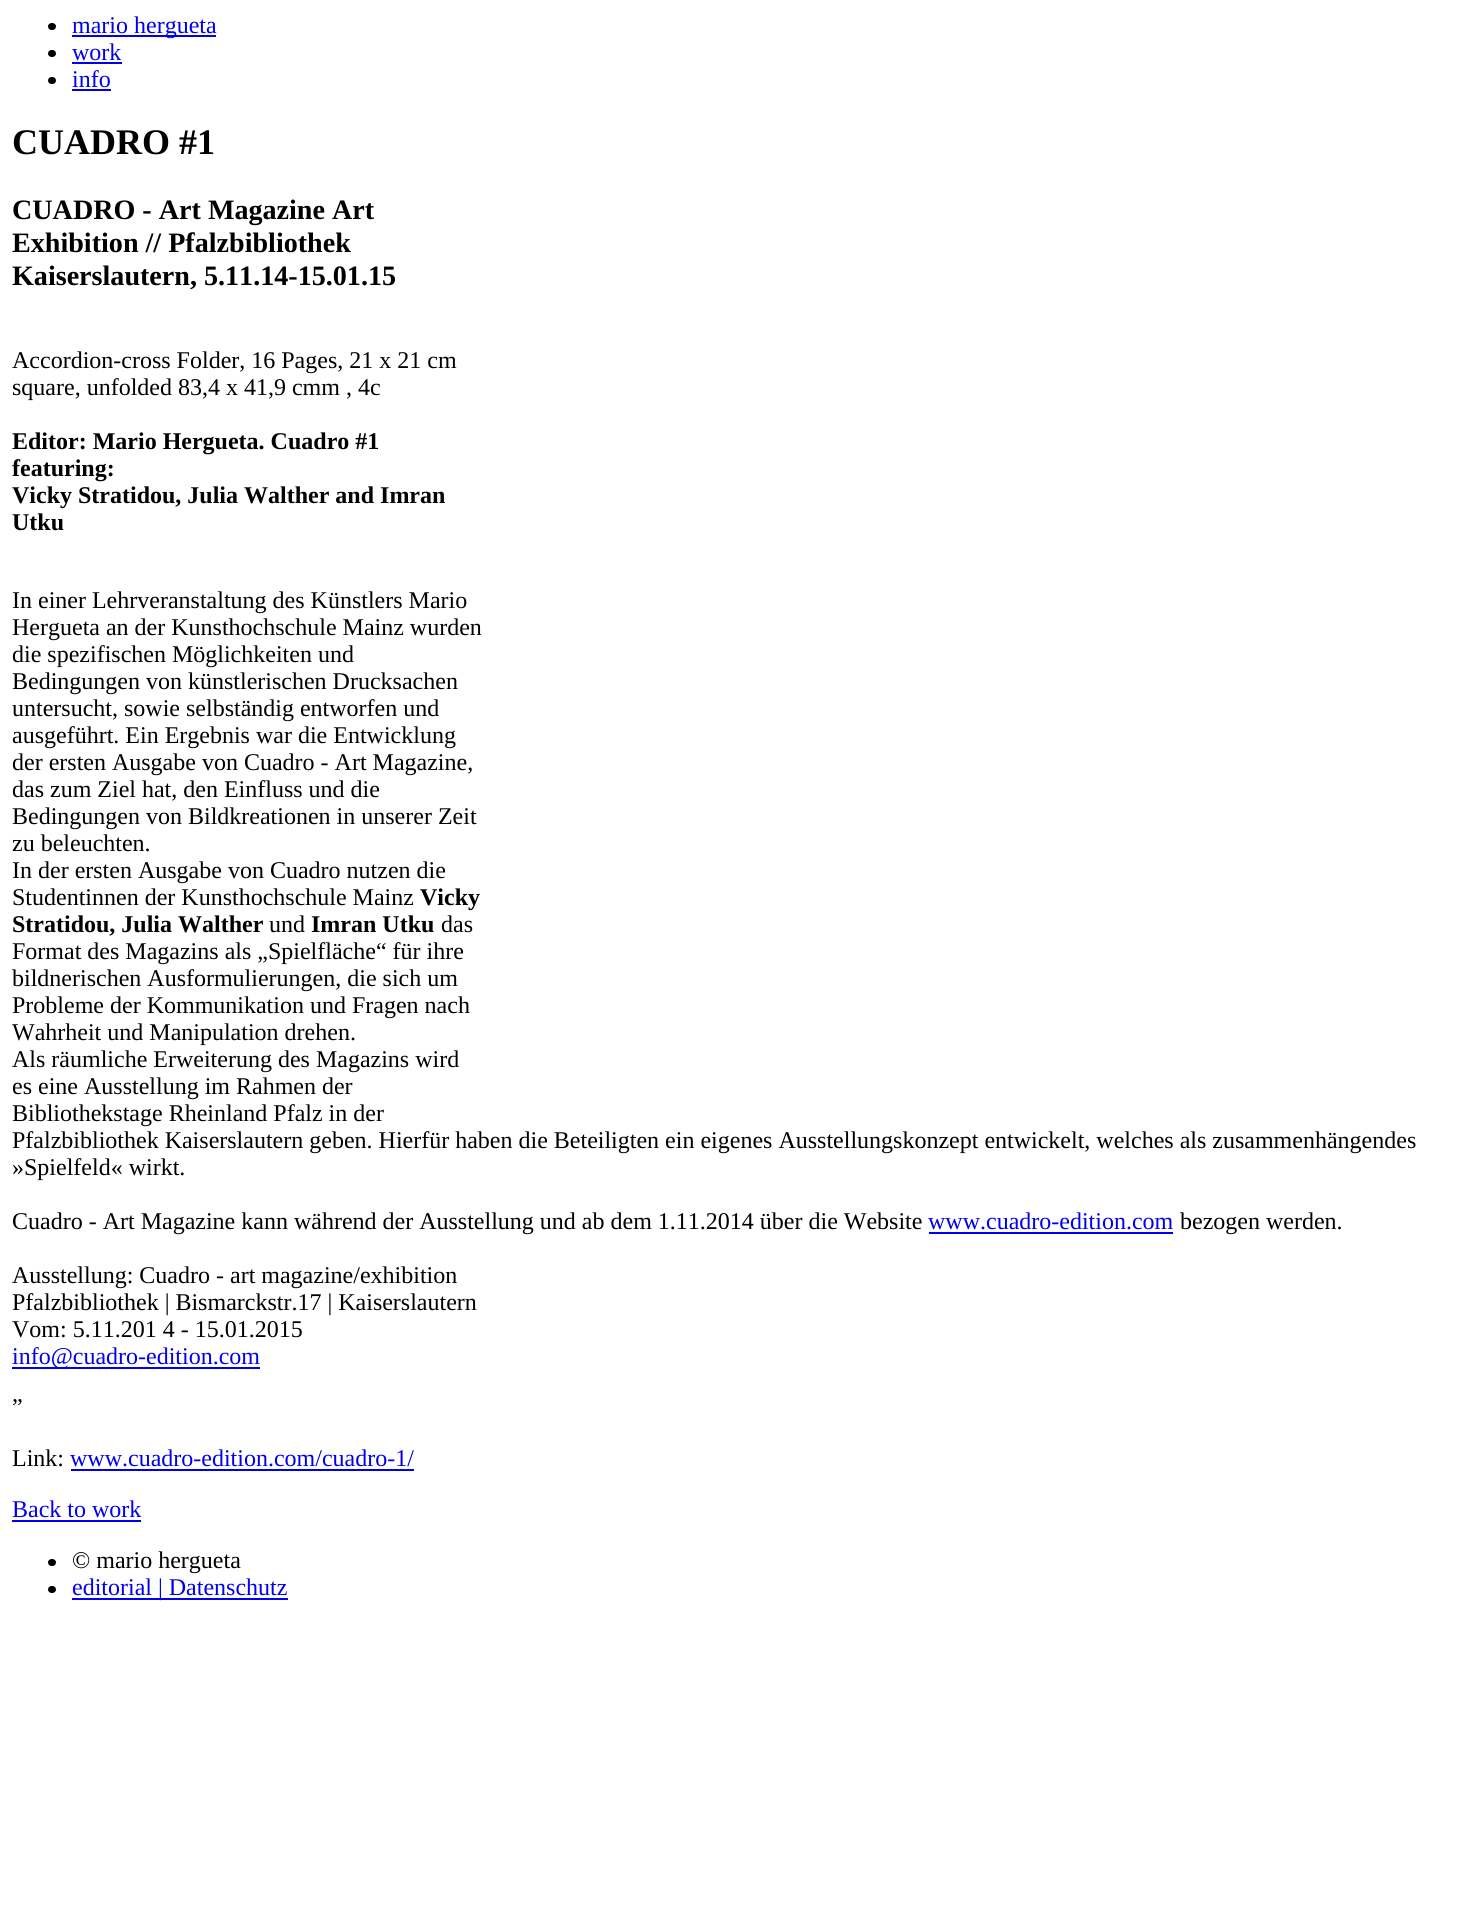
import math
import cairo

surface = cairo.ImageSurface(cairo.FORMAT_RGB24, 1469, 1921)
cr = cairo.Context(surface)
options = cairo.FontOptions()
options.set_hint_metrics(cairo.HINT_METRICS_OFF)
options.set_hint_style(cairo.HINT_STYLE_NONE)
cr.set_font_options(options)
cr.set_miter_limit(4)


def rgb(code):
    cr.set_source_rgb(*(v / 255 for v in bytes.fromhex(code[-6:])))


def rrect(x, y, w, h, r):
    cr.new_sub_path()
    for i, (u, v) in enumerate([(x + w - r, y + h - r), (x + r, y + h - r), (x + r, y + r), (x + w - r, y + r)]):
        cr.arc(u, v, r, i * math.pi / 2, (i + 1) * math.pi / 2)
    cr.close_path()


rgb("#ffffff")
cr.paint()
rgb("#000000")
rrect(48, 23, 8, 7, 3.5)
cr.fill()
rgb("#0000ee")
cr.rectangle(72, 35, 144, 2)
cr.fill()
rgb("#000000")
rrect(48, 50, 8, 7, 3.5)
cr.fill()
rgb("#0000ee")
cr.rectangle(72, 62, 50, 2)
cr.fill()
rgb("#000000")
rrect(48, 77, 8, 7, 3.5)
cr.fill()
for x, y, w, h, color in [
    (72, 89, 39, 2, "#0000ee"),
    (929, 1232, 244, 2, "#0000ee"),
    (12, 1367, 248, 2, "#0000ee"),
    (71, 1469, 343, 2, "#0000ee"),
    (12, 1520, 129, 2, "#0000ee"),
]:
    rgb(color)
    cr.rectangle(x, y, w, h)
    cr.fill()
rgb("#000000")
rrect(48, 1559, 8, 7, 3.5)
cr.fill()
rrect(48, 1586, 8, 7, 3.5)
cr.fill()
rgb("#0000ee")
cr.rectangle(72, 1598, 216, 2)
cr.fill()
cr.select_font_face("Liberation Serif")
cr.set_font_size(24)
for x, y, s in [
    (72, 33, "mario hergueta"),
    (72, 60, "work"),
    (72, 87, "info"),
]:
    cr.move_to(x, y)
    cr.show_text(s)
cr.select_font_face("Liberation Serif", cairo.FONT_SLANT_NORMAL, cairo.FONT_WEIGHT_BOLD)
cr.set_font_size(36)
rgb("#000000")
cr.move_to(12, 154)
cr.show_text("CUADRO #1")
cr.set_font_size(28.1)
for x, y, s in [
    (12, 219, "CUADRO - Art Magazine Art"),
    (12, 252, "Exhibition // Pfalzbibliothek"),
    (12, 285, "Kaiserslautern, 5.11.14-15.01.15"),
]:
    cr.move_to(x, y)
    cr.show_text(s)
cr.select_font_face("Liberation Serif")
cr.set_font_size(24)
cr.move_to(12, 368)
cr.show_text("Accordion-cross Folder, 16 Pages, 21 x 21 cm")
cr.move_to(12, 395)
cr.show_text("square, unfolded 83,4 x 41,9 cmm , 4c")
cr.select_font_face("Liberation Serif", cairo.FONT_SLANT_NORMAL, cairo.FONT_WEIGHT_BOLD)
for x, y, s in [
    (12, 449, "Editor: Mario Hergueta. Cuadro #1"),
    (12, 476, "featuring:"),
    (12, 503, "Vicky Stratidou, Julia Walther and Imran"),
    (12, 530, "Utku"),
]:
    cr.move_to(x, y)
    cr.show_text(s)
cr.select_font_face("Liberation Serif")
for x, y, s in [
    (12, 608, "In einer Lehrveranstaltung des Künstlers Mario"),
    (12, 635, "Hergueta an der Kunsthochschule Mainz wurden"),
    (12, 662, "die spezifischen Möglichkeiten und"),
    (12, 689, "Bedingungen von künstlerischen Drucksachen"),
    (12, 716, "untersucht, sowie selbständig entworfen und"),
    (12, 743, "ausgeführt. Ein Ergebnis war die Entwicklung"),
    (12, 770, "der ersten Ausgabe von Cuadro - Art Magazine,"),
    (12, 797, "das zum Ziel hat, den Einfluss und die"),
    (12, 824, "Bedingungen von Bildkreationen in unserer Zeit"),
    (12, 851, "zu beleuchten."),
    (12, 878, "In der ersten Ausgabe von Cuadro nutzen die"),
    (12, 905, "Studentinnen der Kunsthochschule Mainz"),
]:
    cr.move_to(x, y)
    cr.show_text(s)
cr.select_font_face("Liberation Serif", cairo.FONT_SLANT_NORMAL, cairo.FONT_WEIGHT_BOLD)
cr.move_to(420, 905)
cr.show_text("Vicky")
cr.move_to(12, 932)
cr.show_text("Stratidou, Julia Walther")
cr.select_font_face("Liberation Serif")
cr.move_to(269, 932)
cr.show_text("und")
cr.select_font_face("Liberation Serif", cairo.FONT_SLANT_NORMAL, cairo.FONT_WEIGHT_BOLD)
cr.move_to(311, 932)
cr.show_text("Imran Utku")
cr.select_font_face("Liberation Serif")
for x, y, s in [
    (441, 932, "das"),
    (12, 959, "Format des Magazins als „Spielfläche“ für ihre"),
    (12, 986, "bildnerischen Ausformulierungen, die sich um"),
    (12, 1013, "Probleme der Kommunikation und Fragen nach"),
    (12, 1040, "Wahrheit und Manipulation drehen."),
    (12, 1067, "Als räumliche Erweiterung des Magazins wird"),
    (12, 1094, "es eine Ausstellung im Rahmen der"),
    (12, 1121, "Bibliothekstage Rheinland Pfalz in der"),
    (12, 1148, "Pfalzbibliothek Kaiserslautern geben. Hierfür haben die Beteiligten ein eigenes Ausstellungskonzept entwickelt, welches als zusammenhängendes"),
    (12, 1175, "»Spielfeld« wirkt."),
    (12, 1229, "Cuadro - Art Magazine kann während der Ausstellung und ab dem 1.11.2014 über die Website"),
]:
    cr.move_to(x, y)
    cr.show_text(s)
rgb("#0000ee")
cr.move_to(928, 1229)
cr.show_text("www.cuadro-edition.com")
rgb("#000000")
for x, y, s in [
    (1180, 1229, "bezogen werden."),
    (12, 1283, "Ausstellung: Cuadro - art magazine/exhibition"),
    (12, 1310, "Pfalzbibliothek | Bismarckstr.17 | Kaiserslautern"),
    (12, 1337, "Vom: 5.11.201 4 - 15.01.2015"),
]:
    cr.move_to(x, y)
    cr.show_text(s)
rgb("#0000ee")
cr.move_to(12, 1364)
cr.show_text("info@cuadro-edition.com")
rgb("#000000")
cr.move_to(12, 1415)
cr.show_text("”")
cr.move_to(12, 1466)
cr.show_text("Link:")
rgb("#0000ee")
cr.move_to(70, 1466)
cr.show_text("www.cuadro-edition.com/cuadro-1/")
cr.move_to(12, 1517)
cr.show_text("Back to work")
rgb("#000000")
cr.move_to(72, 1568)
cr.show_text("© mario hergueta")
rgb("#0000ee")
cr.move_to(72, 1595)
cr.show_text("editorial | Datenschutz")
surface.write_to_png("page.png")
